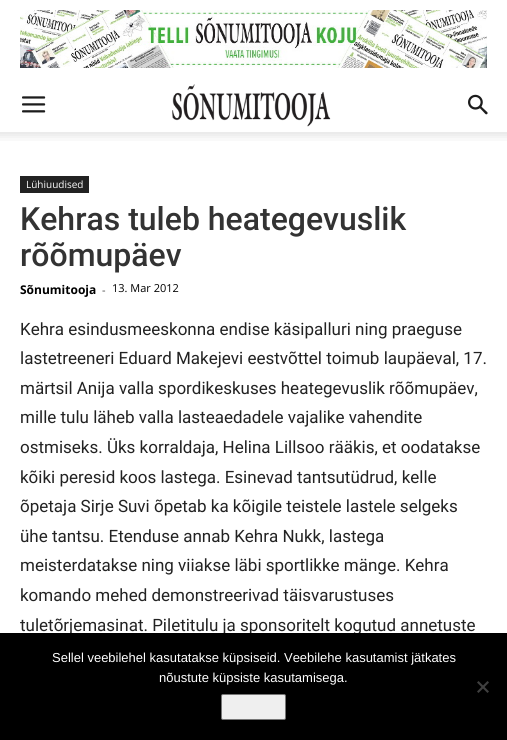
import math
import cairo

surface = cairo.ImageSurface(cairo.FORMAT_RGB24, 507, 740)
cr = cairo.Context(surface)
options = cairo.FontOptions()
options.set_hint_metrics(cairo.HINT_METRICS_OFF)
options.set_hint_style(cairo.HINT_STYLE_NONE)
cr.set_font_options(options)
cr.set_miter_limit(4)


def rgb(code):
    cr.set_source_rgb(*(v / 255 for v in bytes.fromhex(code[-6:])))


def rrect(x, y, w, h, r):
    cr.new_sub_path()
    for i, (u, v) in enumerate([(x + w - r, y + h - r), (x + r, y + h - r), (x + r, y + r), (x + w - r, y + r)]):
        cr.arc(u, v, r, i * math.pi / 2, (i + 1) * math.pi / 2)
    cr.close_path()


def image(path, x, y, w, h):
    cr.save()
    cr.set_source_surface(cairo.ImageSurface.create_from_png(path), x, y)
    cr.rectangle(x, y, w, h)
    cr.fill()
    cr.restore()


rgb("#ffffff")
cr.paint()
image("img/1.png", 20, 10, 467, 58)
image("img/2.png", 22, 96, 24, 17)
image("img/3.png", 172, 84, 159, 43)
image("img/4.png", 468, 94, 20, 21)
image("img/5.png", 0, 132, 507, 9)
rgb("#222222")
cr.rectangle(20, 176, 69, 17)
cr.fill()
cr.select_font_face("Open Sans")
cr.set_font_size(10)
rgb("#ffffff")
cr.move_to(26, 188)
cr.show_text("Lühiuudised")
cr.select_font_face("Roboto Medium")
cr.set_font_size(32)
rgb("#333333")
cr.move_to(20, 230)
cr.show_text("Kehras tuleb heategevuslik")
cr.move_to(20, 266)
cr.show_text("rõõmupäev")
cr.select_font_face("Open Sans", cairo.FONT_SLANT_NORMAL, cairo.FONT_WEIGHT_BOLD)
cr.set_font_size(12)
rgb("#000000")
cr.move_to(20, 294)
cr.show_text("Sõnumitooja")
cr.select_font_face("Open Sans")
cr.set_font_size(11)
rgb("#444444")
cr.move_to(102, 294)
cr.show_text("-")
rgb("#000000")
cr.move_to(112, 292)
cr.show_text("13. Mar 2012")
cr.select_font_face("Roboto")
cr.set_font_size(17)
rgb("#222222")
for x, y, s in [
    (20, 335, "Kehra esindusmeeskonna endise käsipalluri ning praeguse"),
    (20, 364, "lastetreeneri Eduard Makejevi eestvõttel toimub laupäeval, 17."),
    (20, 394, "märtsil Anija valla spordikeskuses heategevuslik rõõmupäev,"),
    (20, 423, "mille tulu läheb valla lasteaedadele vajalike vahendite"),
    (20, 453, "ostmiseks. Üks korraldaja, Helina Lillsoo rääkis, et oodatakse"),
    (20, 483, "kõiki peresid koos lastega. Esinevad tantsutüdrud, kelle"),
    (20, 512, "õpetaja Sirje Suvi õpetab ka kõigile teistele lastele selgeks"),
    (20, 542, "ühe tantsu. Etenduse annab Kehra Nukk, lastega"),
    (20, 571, "meisterdatakse ning viiakse läbi sportlikke mänge. Kehra"),
    (20, 601, "komando mehed demonstreerivad täisvarustuses"),
    (20, 631, "tuletõrjemasinat. Piletitulu ja sponsoritelt kogutud annetuste"),
]:
    cr.move_to(x, y)
    cr.show_text(s)
rgb("#000000")
cr.rectangle(0, 633, 507, 107)
cr.fill()
cr.select_font_face("Liberation Sans")
cr.set_font_size(13)
rgb("#ffffff")
cr.move_to(52, 662)
cr.show_text("Sellel veebilehel kasutatakse küpsiseid. Veebilehe kasutamist jätkates")
cr.move_to(159, 682)
cr.show_text("nõustute küpsiste kasutamisega.")
rgb("#404040")
cr.new_path()
cr.move_to(487.5, 681)
cr.line_to(489, 682.5)
cr.line_to(478.5, 693)
cr.line_to(477, 691.5)
cr.close_path()
cr.fill()
cr.new_path()
cr.move_to(477, 682.5)
cr.line_to(478.5, 681)
cr.line_to(489, 691.5)
cr.line_to(487.5, 693)
cr.close_path()
cr.fill()
rgb("#efefef")
rrect(221.5, 694.5, 64, 25, 1.5)
cr.fill_preserve()
rgb("#767676")
cr.set_line_width(1)
cr.stroke()
surface.write_to_png("page.png")
